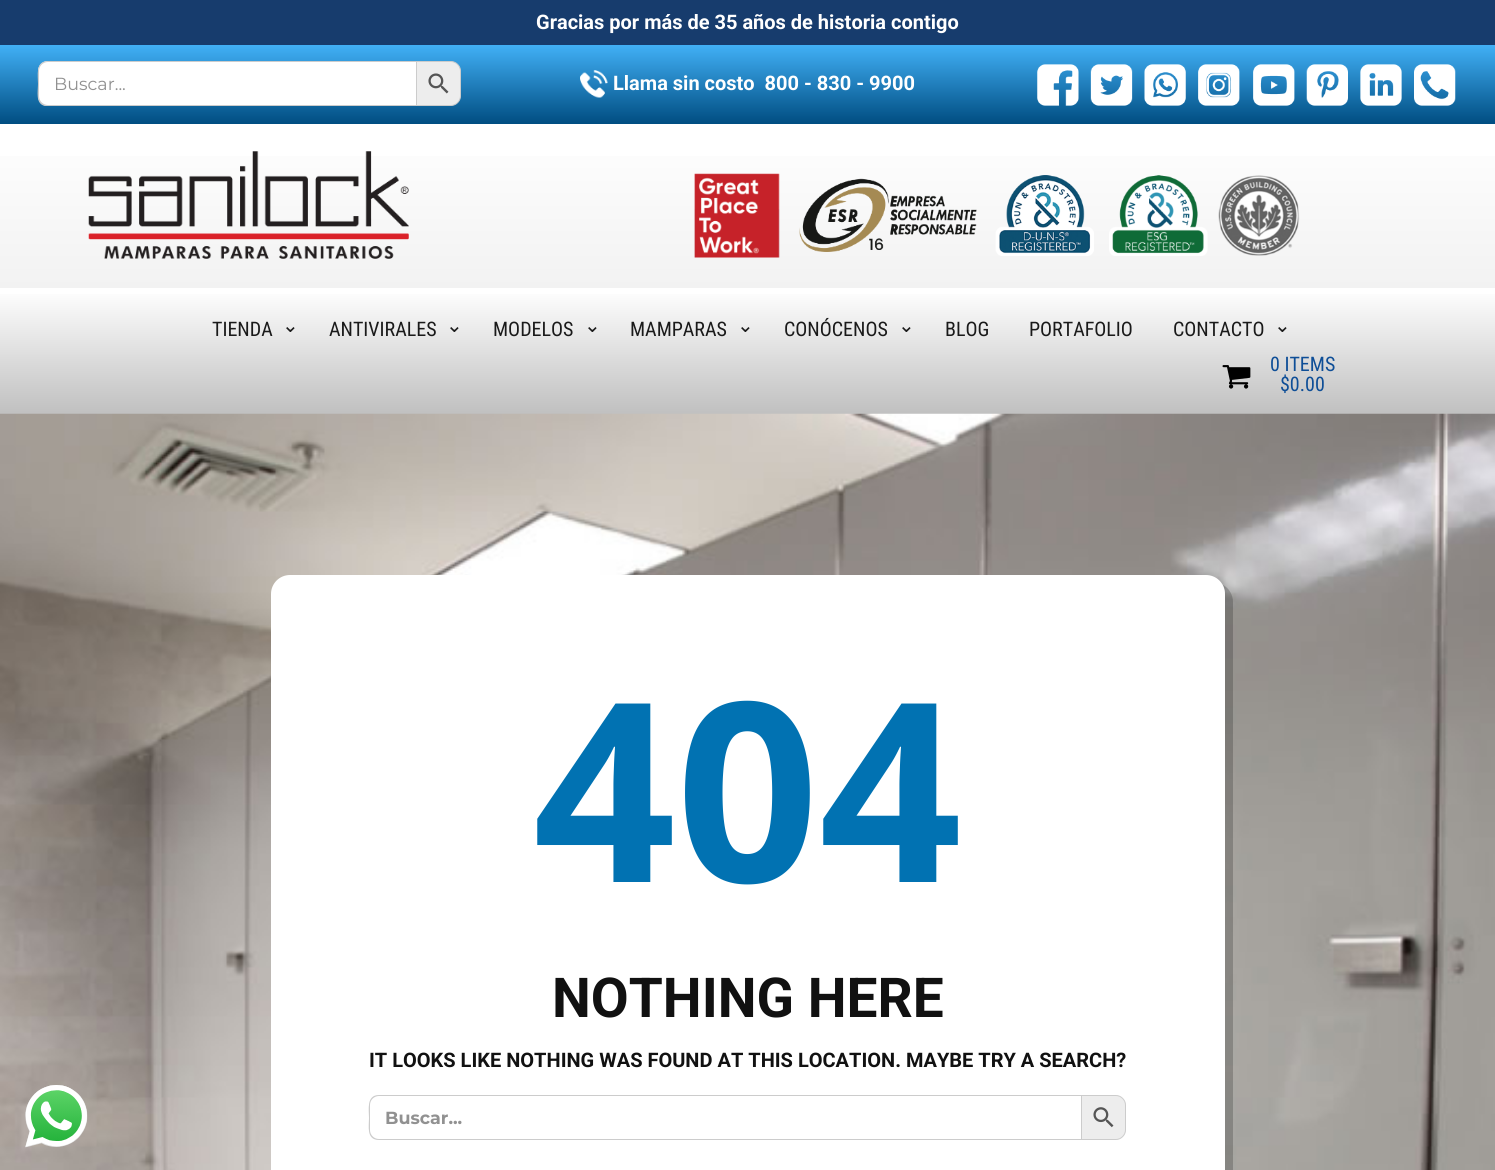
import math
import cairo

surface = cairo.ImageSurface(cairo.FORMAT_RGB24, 1495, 1170)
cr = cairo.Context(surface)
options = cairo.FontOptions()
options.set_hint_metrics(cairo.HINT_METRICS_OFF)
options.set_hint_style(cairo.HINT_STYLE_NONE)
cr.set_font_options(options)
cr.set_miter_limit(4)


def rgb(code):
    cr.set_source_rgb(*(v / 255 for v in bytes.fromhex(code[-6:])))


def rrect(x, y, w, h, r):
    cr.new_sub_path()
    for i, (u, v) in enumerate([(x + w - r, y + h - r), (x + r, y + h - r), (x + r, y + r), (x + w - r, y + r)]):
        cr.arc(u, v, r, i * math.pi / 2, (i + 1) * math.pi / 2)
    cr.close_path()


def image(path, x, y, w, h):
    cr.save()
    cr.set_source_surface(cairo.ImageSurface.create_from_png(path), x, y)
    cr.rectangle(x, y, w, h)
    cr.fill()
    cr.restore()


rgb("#ffffff")
cr.paint()
rgb("#173c6d")
cr.rectangle(0, 0, 1495, 45)
cr.fill()
gradient = cairo.LinearGradient(748, 45, 748, 124)
gradient.add_color_stop_rgba(0, 0.255, 0.69, 0.965, 1)
gradient.add_color_stop_rgba(1, 0, 0.302, 0.506, 1)
cr.set_source(gradient)
cr.rectangle(0, 45, 1495, 79)
cr.fill()
rgb("#ffffff")
cr.new_path()
cr.move_to(48, 61)
cr.line_to(416, 61)
cr.line_to(416, 106)
cr.line_to(48, 106)
cr.curve_to(42.5, 106, 38, 101.5, 38, 96)
cr.line_to(38, 71)
cr.curve_to(38, 65.5, 42.5, 61, 48, 61)
cr.close_path()
cr.fill()
rgb("#cccccc")
cr.set_fill_rule(cairo.FILL_RULE_EVEN_ODD)
cr.new_path()
cr.move_to(48, 61)
cr.line_to(416, 61)
cr.line_to(416, 106)
cr.line_to(45, 106)
cr.curve_to(35, 104, 38, 91, 38, 84)
cr.curve_to(38, 76, 35, 61, 48, 61)
cr.close_path()
cr.move_to(48, 62)
cr.line_to(416, 62)
cr.line_to(416, 105)
cr.line_to(48, 105)
cr.curve_to(43, 105, 39, 101, 39, 96)
cr.line_to(39, 71)
cr.curve_to(39, 66, 43, 62, 48, 62)
cr.close_path()
cr.fill()
rgb("#ededed")
cr.new_path()
cr.move_to(416.5, 61.5)
cr.line_to(451, 61.5)
cr.curve_to(456, 61.5, 460.5, 66, 460.5, 71)
cr.line_to(460.5, 96)
cr.curve_to(460.5, 101, 456, 105.5, 451, 105.5)
cr.line_to(416.5, 105.5)
cr.close_path()
cr.fill_preserve()
rgb("#cccccc")
cr.set_line_width(1)
cr.stroke()
image("img/1.png", 428, 73, 21, 21)
image("img/2.png", 580, 70, 28, 28)
image("img/3.png", 1037, 64, 42, 42)
image("img/4.png", 1090, 64, 43, 42)
image("img/5.png", 1144, 64, 42, 42)
image("img/6.png", 1198, 64, 42, 42)
image("img/7.png", 1253, 64, 42, 42)
image("img/8.png", 1306, 64, 42, 42)
image("img/9.png", 1360, 64, 42, 42)
image("img/10.png", 1414, 64, 42, 42)
gradient = cairo.LinearGradient(748, 124, 748, 288)
gradient.add_color_stop_rgba(0, 1, 1, 1, 1)
gradient.add_color_stop_rgba(1, 0.949, 0.949, 0.949, 1)
cr.set_source(gradient)
cr.rectangle(0, 156, 1495, 132)
cr.fill()
image("img/11.png", 88, 151, 321, 108)
image("img/12.png", 694, 173, 606, 85)
gradient = cairo.LinearGradient(748, 289, 748, 414)
gradient.add_color_stop_rgba(0, 1, 1, 1, 1)
gradient.add_color_stop_rgba(1, 0.753, 0.753, 0.753, 1)
cr.set_source(gradient)
cr.rectangle(0, 294, 1495, 120)
cr.fill()
image("img/13.png", 1222, 365, 29, 24)
image("img/14.png", 0, 413, 1495, 757)
cr.set_source_rgba(0, 0, 0, 0.2)
cr.set_fill_rule(cairo.FILL_RULE_WINDING)
cr.new_path()
cr.move_to(282, 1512)
cr.curve_to(285, 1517, 291, 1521, 298, 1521)
cr.line_to(1214, 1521)
cr.curve_to(1224, 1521, 1233, 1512, 1233, 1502)
cr.line_to(1233, 602)
cr.curve_to(1233, 595, 1229, 588, 1223, 585)
cr.curve_to(1224, 588, 1225, 591, 1225, 594)
cr.line_to(1225, 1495)
cr.curve_to(1225, 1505, 1217, 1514, 1206, 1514)
cr.line_to(290, 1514)
cr.curve_to(287, 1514, 284, 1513, 282, 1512)
cr.close_path()
cr.fill()
rgb("#ffffff")
rrect(271, 575, 954, 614, 19)
cr.fill()
rgb("#cccccc")
cr.set_fill_rule(cairo.FILL_RULE_EVEN_ODD)
cr.new_path()
cr.move_to(379, 1095)
cr.line_to(1081, 1095)
cr.line_to(1081, 1140)
cr.line_to(379, 1140)
cr.curve_to(366, 1140, 369, 1126, 369, 1118)
cr.curve_to(369, 1110, 366, 1095, 379, 1095)
cr.close_path()
cr.move_to(379, 1096)
cr.line_to(1081, 1096)
cr.line_to(1081, 1139)
cr.line_to(379, 1139)
cr.curve_to(374, 1139, 370, 1135, 370, 1130)
cr.line_to(370, 1105)
cr.curve_to(370, 1100, 374, 1096, 379, 1096)
cr.close_path()
cr.fill()
rgb("#ededed")
cr.new_path()
cr.move_to(1081.5, 1095.5)
cr.line_to(1116, 1095.5)
cr.curve_to(1121, 1095.5, 1125.5, 1100, 1125.5, 1105)
cr.line_to(1125.5, 1130)
cr.curve_to(1125.5, 1135, 1121, 1139.5, 1116, 1139.5)
cr.line_to(1081.5, 1139.5)
cr.close_path()
cr.fill_preserve()
rgb("#cccccc")
cr.stroke()
image("img/15.png", 1093, 1107, 21, 21)
image("img/16.png", 25, 1085, 63, 63)
cr.select_font_face("Roboto", cairo.FONT_SLANT_NORMAL, cairo.FONT_WEIGHT_BOLD)
cr.set_font_size(20)
rgb("#ffffff")
cr.move_to(536, 29)
cr.show_text("Gracias por más de 35 años de historia contigo")
cr.select_font_face("Montserrat")
cr.set_font_size(17.5)
rgb("#919191")
cr.move_to(54, 90)
cr.show_text("Buscar...")
cr.select_font_face("Roboto", cairo.FONT_SLANT_NORMAL, cairo.FONT_WEIGHT_BOLD)
cr.set_font_size(20)
rgb("#ffffff")
cr.move_to(613, 90)
cr.show_text("Llama sin costo  800 - 830 - 9900")
cr.select_font_face("Roboto Condensed")
rgb("#1a1a1a")
cr.move_to(212, 336)
cr.show_text("TIENDA")
cr.select_font_face("DejaVu Sans")
cr.move_to(282, 332)
cr.show_text("⌄")
cr.select_font_face("Roboto Condensed")
cr.move_to(329, 336)
cr.show_text("ANTIVIRALES")
cr.select_font_face("DejaVu Sans")
cr.move_to(446, 332)
cr.show_text("⌄")
cr.select_font_face("Roboto Condensed")
cr.move_to(493, 336)
cr.show_text("MODELOS")
cr.select_font_face("DejaVu Sans")
cr.move_to(584, 332)
cr.show_text("⌄")
cr.select_font_face("Roboto Condensed")
cr.move_to(630, 336)
cr.show_text("MAMPARAS")
cr.select_font_face("DejaVu Sans")
cr.move_to(737, 332)
cr.show_text("⌄")
cr.select_font_face("Roboto Condensed")
cr.move_to(784, 336)
cr.show_text("CONÓCENOS")
cr.select_font_face("DejaVu Sans")
cr.move_to(898, 332)
cr.show_text("⌄")
cr.select_font_face("Roboto Condensed")
for x, y, s in [
    (945, 336, "BLOG"),
    (1029, 336, "PORTAFOLIO"),
    (1173, 336, "CONTACTO"),
]:
    cr.move_to(x, y)
    cr.show_text(s)
cr.select_font_face("DejaVu Sans")
cr.move_to(1274, 332)
cr.show_text("⌄")
cr.select_font_face("Roboto Condensed")
rgb("#0e4e97")
cr.move_to(1270, 371)
cr.show_text("0 ITEMS")
cr.move_to(1280, 391)
cr.show_text("$0.00")
cr.select_font_face("Open Sans", cairo.FONT_SLANT_NORMAL, cairo.FONT_WEIGHT_BOLD)
cr.set_font_size(250)
rgb("#0172b2")
cr.move_to(533, 882)
cr.show_text("404")
cr.select_font_face("Roboto", cairo.FONT_SLANT_NORMAL, cairo.FONT_WEIGHT_BOLD)
cr.set_font_size(55)
rgb("#111111")
cr.move_to(552, 1017)
cr.show_text("NOTHING HERE")
cr.set_font_size(20)
cr.move_to(369, 1067)
cr.show_text("IT LOOKS LIKE NOTHING WAS FOUND AT THIS LOCATION. MAYBE TRY A SEARCH?")
cr.select_font_face("Montserrat", cairo.FONT_SLANT_NORMAL, cairo.FONT_WEIGHT_BOLD)
cr.set_font_size(17.5)
rgb("#919191")
cr.move_to(385, 1124)
cr.show_text("Buscar...")
surface.write_to_png("page.png")
